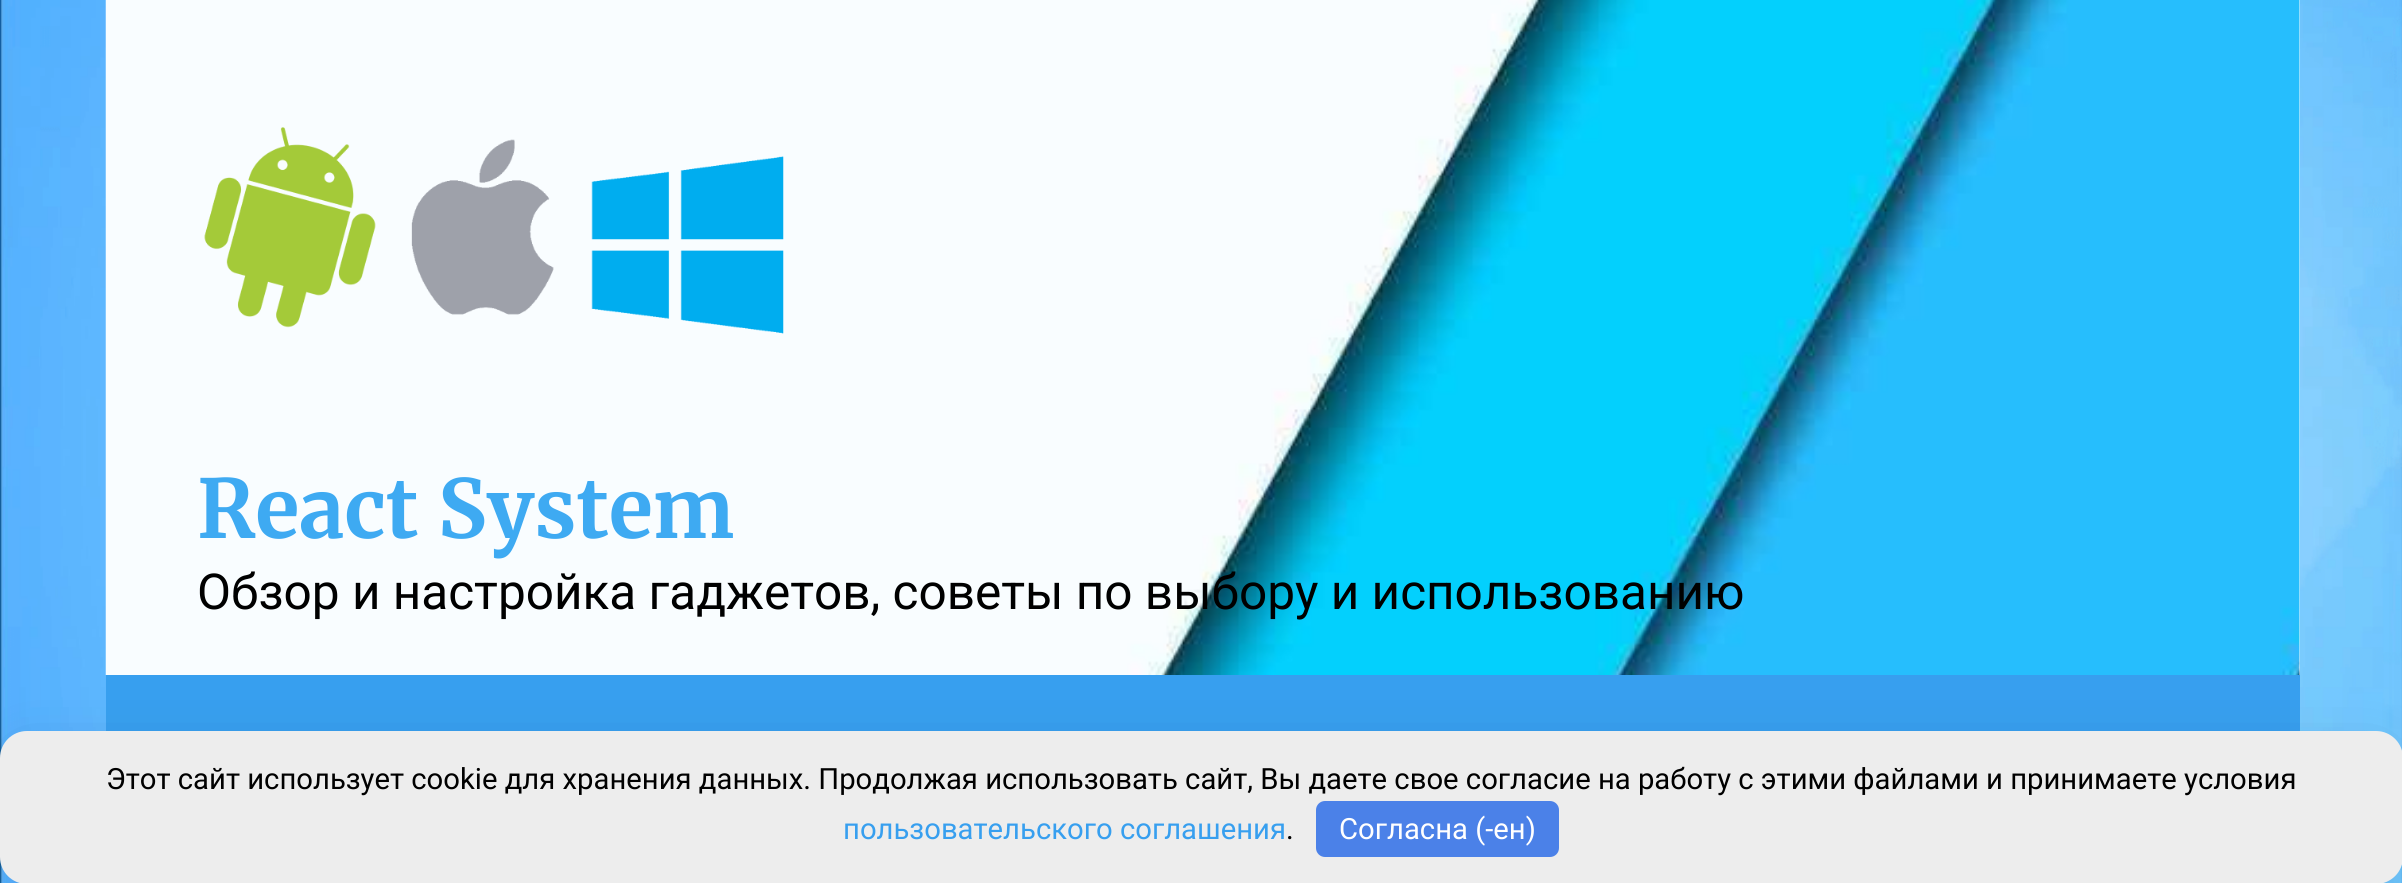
import math
import cairo

surface = cairo.ImageSurface(cairo.FORMAT_RGB24, 2402, 883)
cr = cairo.Context(surface)
options = cairo.FontOptions()
options.set_hint_metrics(cairo.HINT_METRICS_OFF)
options.set_hint_style(cairo.HINT_STYLE_NONE)
cr.set_font_options(options)
cr.set_miter_limit(4)


def rgb(code):
    cr.set_source_rgb(*(v / 255 for v in bytes.fromhex(code[-6:])))


def rrect(x, y, w, h, r):
    cr.new_sub_path()
    for i, (u, v) in enumerate([(x + w - r, y + h - r), (x + r, y + h - r), (x + r, y + r), (x + w - r, y + r)]):
        cr.arc(u, v, r, i * math.pi / 2, (i + 1) * math.pi / 2)
    cr.close_path()


def soft_shadow(x, y, w, h, r, blur, alpha):
    cr.push_group_with_content(cairo.CONTENT_ALPHA)
    cr.set_operator(cairo.OPERATOR_SOURCE)
    for i in range(15, -16, -2):
        e = blur * i / 6
        if min(w, h) + 2 * e > 0:
            cr.set_source_rgba(0, 0, 0, alpha * math.erfc((i - 1) / 8.5) / 2)
            rrect(x - e, y - e, w + 2 * e, h + 2 * e, max(0, min(r + e + blur * .6, min(w, h) / 2 + e)))
            cr.fill()
    cr.mask(cr.pop_group())


def image(path, x, y, w, h):
    cr.save()
    cr.set_source_surface(cairo.ImageSurface.create_from_png(path), x, y)
    cr.rectangle(x, y, w, h)
    cr.fill()
    cr.restore()


rgb("#ffffff")
cr.paint()
image("img/1.png", 0, 0, 2402, 883)
rgb("#ffffff")
cr.rectangle(2299, 0, 1, 675)
cr.fill()
image("img/2.png", 105, 0, 2195, 675)
image("img/3.png", 204, 127, 580, 207)
rgb("#379fef")
cr.rectangle(106, 675, 2194, 56)
cr.fill()
rgb("#292c38")
soft_shadow(11, 749, 2381, 131, 16, 22.5, 0.2)
rgb("#ededed")
rrect(0, 731, 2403, 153, 27)
cr.fill()
rgb("#4b81e8")
rrect(1316, 801, 243, 56, 9)
cr.fill()
cr.select_font_face("Merriweather", cairo.FONT_SLANT_NORMAL, cairo.FONT_WEIGHT_BOLD)
cr.set_font_size(81)
rgb("#3eaaf2")
cr.move_to(197, 538)
cr.show_text("React System")
cr.select_font_face("Roboto")
cr.set_font_size(49.5)
rgb("#000000")
cr.move_to(197, 609)
cr.show_text("Обзор и настройка гаджетов, советы по выбору и использованию")
cr.set_font_size(29.25)
cr.move_to(106, 789)
cr.show_text("Этот сайт использует cookie для хранения данных. Продолжая использовать сайт, Вы даете свое согласие на работу с этими файлами и принимаете условия")
rgb("#379fef")
cr.move_to(843, 839)
cr.show_text("пользовательского соглашения")
rgb("#000000")
cr.move_to(1286, 839)
cr.show_text(".")
rgb("#ffffff")
cr.move_to(1339, 839)
cr.show_text("Согласна (-ен)")
surface.write_to_png("page.png")
